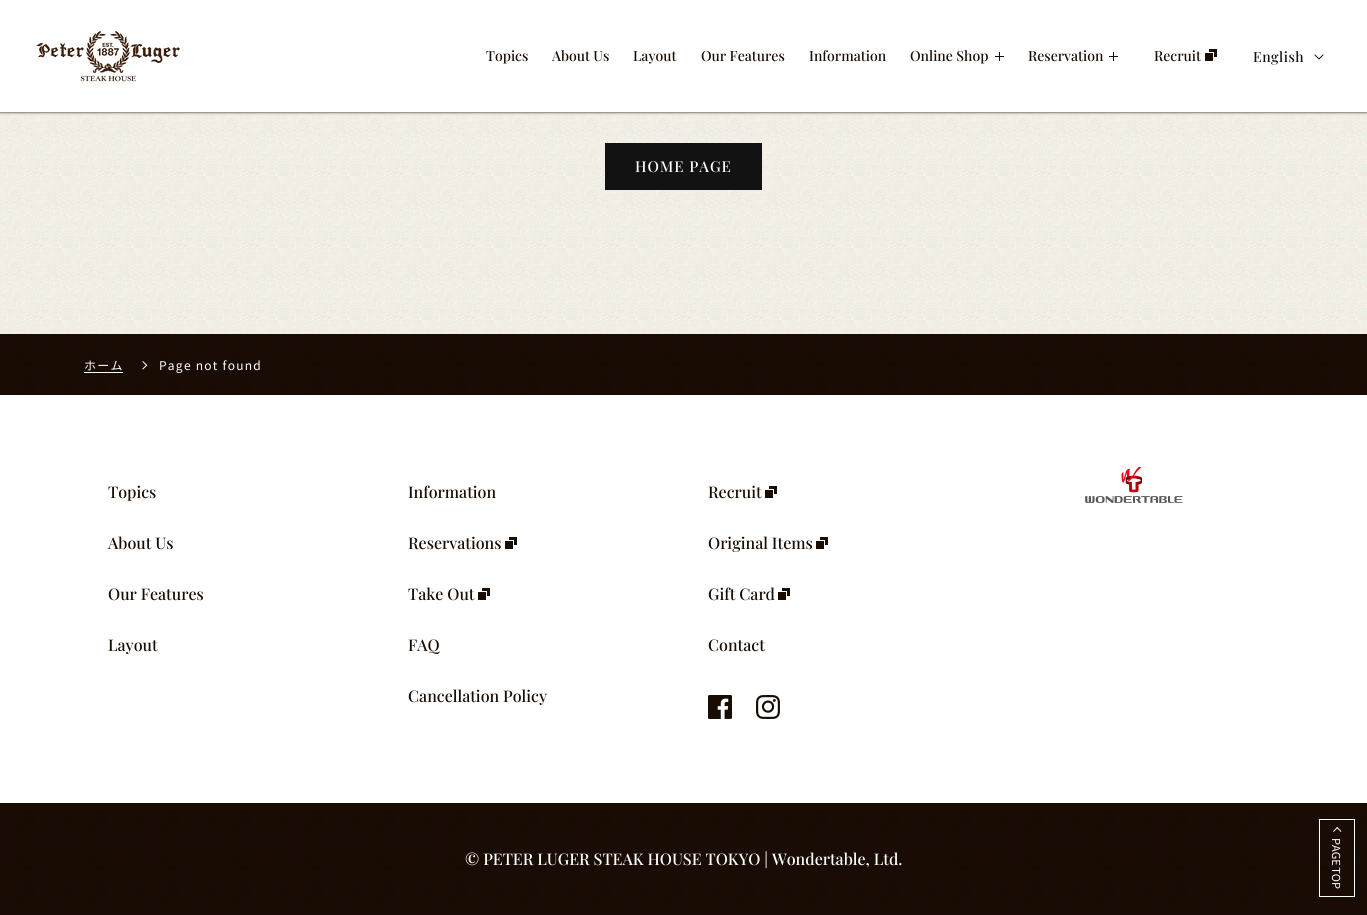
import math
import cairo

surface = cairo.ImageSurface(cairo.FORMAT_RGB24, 1367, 915)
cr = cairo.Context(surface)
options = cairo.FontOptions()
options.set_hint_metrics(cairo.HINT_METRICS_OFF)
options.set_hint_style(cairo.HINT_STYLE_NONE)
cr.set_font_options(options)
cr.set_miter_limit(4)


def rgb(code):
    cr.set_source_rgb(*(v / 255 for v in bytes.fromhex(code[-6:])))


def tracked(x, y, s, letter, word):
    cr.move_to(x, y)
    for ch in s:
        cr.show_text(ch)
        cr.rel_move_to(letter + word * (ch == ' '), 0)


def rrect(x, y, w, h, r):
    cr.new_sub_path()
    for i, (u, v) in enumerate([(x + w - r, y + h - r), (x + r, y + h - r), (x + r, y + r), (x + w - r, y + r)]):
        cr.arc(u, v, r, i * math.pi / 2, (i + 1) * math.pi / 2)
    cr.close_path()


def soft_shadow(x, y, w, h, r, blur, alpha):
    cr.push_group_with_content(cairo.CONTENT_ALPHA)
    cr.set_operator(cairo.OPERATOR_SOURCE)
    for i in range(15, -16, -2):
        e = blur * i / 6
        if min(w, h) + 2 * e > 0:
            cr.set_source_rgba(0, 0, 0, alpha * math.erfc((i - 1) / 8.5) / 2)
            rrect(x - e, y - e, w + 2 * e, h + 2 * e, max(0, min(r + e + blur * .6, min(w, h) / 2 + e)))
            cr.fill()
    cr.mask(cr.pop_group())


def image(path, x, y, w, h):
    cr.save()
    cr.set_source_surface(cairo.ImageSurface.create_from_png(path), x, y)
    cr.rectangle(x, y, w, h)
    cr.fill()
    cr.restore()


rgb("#ffffff")
cr.paint()
image("img/3.png", 0, 112, 1367, 222)
rgb("#190c03")
soft_shadow(0, 0, 1367, 112, 0, 1.5, 1)
rgb("#ffffff")
cr.rectangle(0, 0, 1367, 112)
cr.fill()
image("img/1.png", 36, 31, 144, 51)
for x, y, w, h, color in [
    (995, 56, 9, 1, "#190c03"),
    (999, 52, 1, 9, "#190c03"),
    (1109, 56, 9, 1, "#190c03"),
    (1113, 52, 1, 9, "#190c03"),
    (1205, 53, 8, 8, "#190c03"),
    (1214, 49, 3, 8, "#190c03"),
    (1209, 49, 8, 3, "#190c03"),
]:
    rgb(color)
    cr.rectangle(x, y, w, h)
    cr.fill()
image("img/2.png", 1314, 54, 10, 6)
rgb("#121212")
cr.rectangle(605, 143, 157, 47)
cr.fill()
image("img/4.png", 0, 334, 1367, 581)
rgb("#ffffff")
cr.rectangle(84, 372, 39, 1)
cr.fill()
image("img/5.png", 142, 361, 6, 9)
for x, y, w, h, color in [
    (0, 395, 1367, 408, "#ffffff"),
    (514, 537, 3, 8, "#190c03"),
    (509, 537, 8, 3, "#190c03"),
    (505, 541, 8, 8, "#190c03"),
    (487, 588, 3, 8, "#190c03"),
    (482, 588, 8, 3, "#190c03"),
    (478, 592, 8, 8, "#190c03"),
    (774, 486, 3, 8, "#190c03"),
    (769, 486, 8, 3, "#190c03"),
    (765, 490, 8, 8, "#190c03"),
    (825, 537, 3, 8, "#190c03"),
    (820, 537, 8, 3, "#190c03"),
    (816, 541, 8, 8, "#190c03"),
    (787, 588, 3, 8, "#190c03"),
    (782, 588, 8, 3, "#190c03"),
    (778, 592, 8, 8, "#190c03"),
]:
    rgb(color)
    cr.rectangle(x, y, w, h)
    cr.fill()
image("img/6.png", 708, 695, 24, 24)
image("img/7.png", 756, 695, 24, 24)
image("img/8.png", 1085, 467, 98, 36)
cr.rectangle(1343, 836, 1, 2)
cr.fill()
cr.rectangle(1319.5, 819.5, 35, 77)
rgb("#ffffff")
cr.set_line_width(1)
cr.stroke()
image("img/9.png", 1333, 827, 9, 5)
cr.select_font_face("Playfair Display Medium")
cr.set_font_size(14)
rgb("#190c03")
for x, y, s in [
    (486, 61, "Topics"),
    (552, 61, "About Us"),
    (633, 61, "Layout"),
    (701, 61, "Our Features"),
    (809, 61, "Information"),
    (910, 61, "Online Shop"),
    (1028, 61, "Reservation"),
    (1154, 61, "Recruit"),
]:
    cr.move_to(x, y)
    cr.show_text(s)
rgb("#121212")
tracked(1253, 62, "English", 0.5, 0)
cr.set_font_size(15)
rgb("#ffffff")
tracked(635, 172, "HOME PAGE", 1, 0)
cr.select_font_face("Noto Sans JP")
cr.set_font_size(12)
tracked(84, 370, "ホーム", 1.25, 0)
tracked(159, 370, "Page not found", 1.25, 0)
cr.select_font_face("Playfair Display Medium")
cr.set_font_size(16)
rgb("#190c03")
for x, y, s in [
    (108, 498, "Topics"),
    (108, 549, "About Us"),
    (108, 600, "Our Features"),
    (108, 651, "Layout"),
    (408, 498, "Information"),
    (408, 549, "Reservations"),
    (408, 600, "Take Out"),
    (408, 651, "FAQ"),
    (408, 702, "Cancellation Policy"),
    (708, 498, "Recruit"),
    (708, 549, "Original Items"),
    (708, 600, "Gift Card"),
    (708, 651, "Contact"),
]:
    cr.move_to(x, y)
    cr.show_text(s)
rgb("#ffffff")
cr.move_to(465, 865)
cr.show_text("© PETER LUGER STEAK HOUSE TOKYO | Wondertable, Ltd.")
cr.select_font_face("Noto Sans JP")
cr.set_font_size(11)
cr.save()
cr.translate(1332, 838)
cr.rotate(90 * math.pi / 180)
tracked(0, 0, "PAGE TOP", 0, -1)
cr.restore()
surface.write_to_png("page.png")
